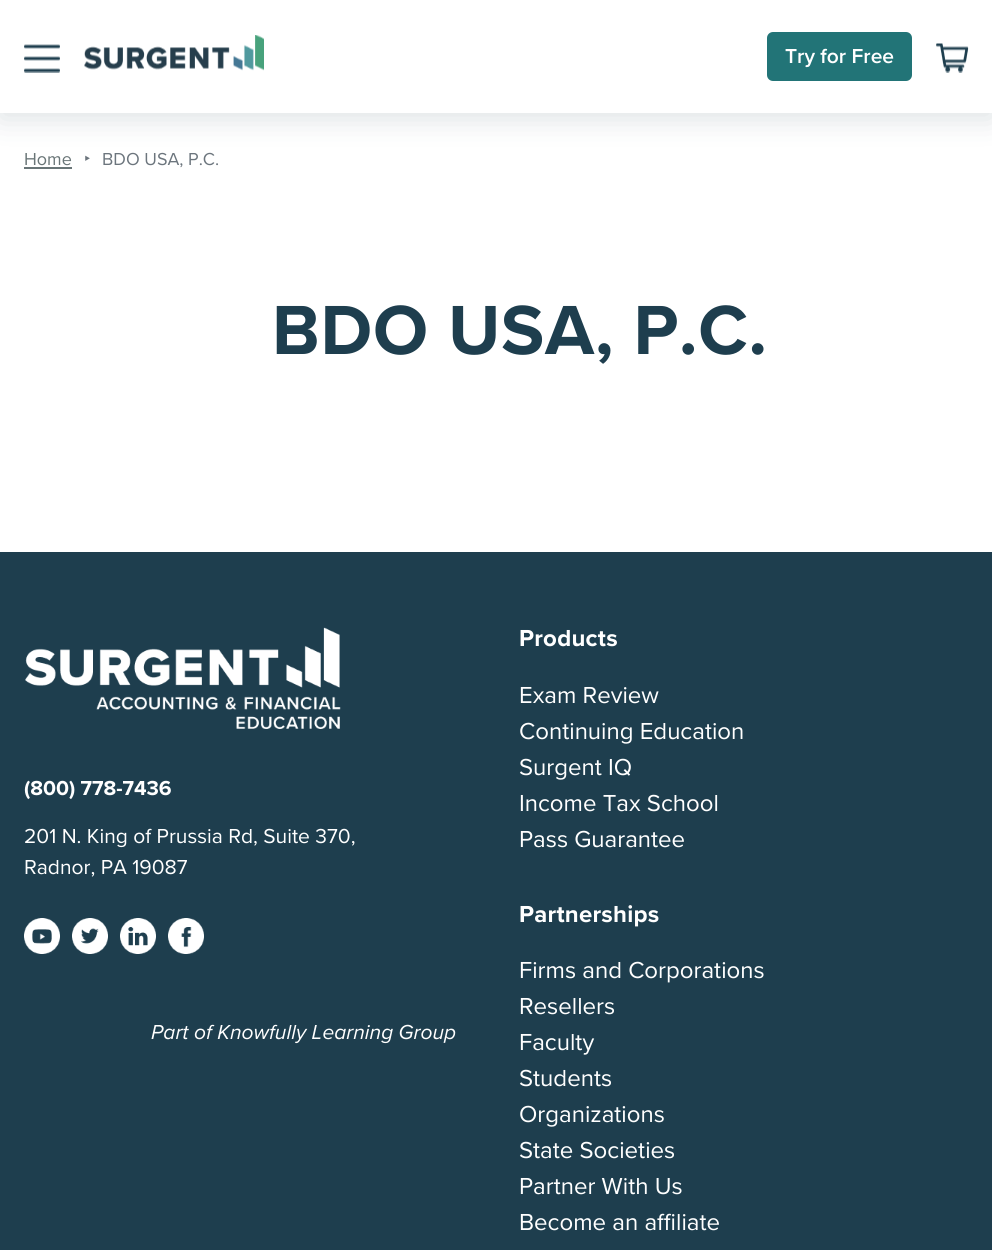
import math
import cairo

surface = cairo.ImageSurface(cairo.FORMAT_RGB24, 992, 1250)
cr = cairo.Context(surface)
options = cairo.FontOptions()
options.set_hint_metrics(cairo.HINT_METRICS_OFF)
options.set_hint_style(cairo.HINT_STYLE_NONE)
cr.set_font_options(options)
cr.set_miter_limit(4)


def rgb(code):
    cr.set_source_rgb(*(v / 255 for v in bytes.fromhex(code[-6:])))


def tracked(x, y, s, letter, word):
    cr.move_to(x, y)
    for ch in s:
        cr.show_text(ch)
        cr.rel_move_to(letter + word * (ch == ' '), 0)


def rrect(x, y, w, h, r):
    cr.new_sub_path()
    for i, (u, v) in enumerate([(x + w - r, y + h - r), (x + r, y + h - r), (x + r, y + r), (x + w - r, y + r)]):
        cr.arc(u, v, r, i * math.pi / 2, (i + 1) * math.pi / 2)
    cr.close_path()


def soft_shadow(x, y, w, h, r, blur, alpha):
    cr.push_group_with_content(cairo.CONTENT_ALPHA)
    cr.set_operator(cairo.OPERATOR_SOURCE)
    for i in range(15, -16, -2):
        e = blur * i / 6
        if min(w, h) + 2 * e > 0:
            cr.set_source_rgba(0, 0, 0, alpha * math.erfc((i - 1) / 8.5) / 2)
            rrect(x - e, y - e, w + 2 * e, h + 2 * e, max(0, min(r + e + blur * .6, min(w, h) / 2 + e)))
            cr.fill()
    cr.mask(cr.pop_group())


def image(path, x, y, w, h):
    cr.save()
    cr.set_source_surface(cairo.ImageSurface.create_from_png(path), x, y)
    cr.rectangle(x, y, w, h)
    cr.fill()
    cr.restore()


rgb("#ffffff")
cr.paint()
cr.save()
cr.set_fill_rule(cairo.FILL_RULE_EVEN_ODD)
cr.new_path()
cr.move_to(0, 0)
cr.line_to(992, 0)
cr.line_to(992, 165)
cr.line_to(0, 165)
cr.close_path()
cr.move_to(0, 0)
cr.line_to(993, 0)
cr.line_to(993, 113)
cr.line_to(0, 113)
cr.close_path()
cr.clip()
rgb("#1e3e4e")
soft_shadow(0, 6, 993, 113, 0, 15, 0.15)
cr.restore()
image("img/1.png", 24, 44, 36, 29)
image("img/2.png", 84, 35, 180, 36)
rgb("#227477")
rrect(768.5, 33.5, 142, 46, 4.5)
cr.fill_preserve()
cr.set_line_width(3)
cr.stroke()
image("img/3.png", 936, 43, 33, 30)
rgb("#697577")
cr.rectangle(24, 167, 48, 2)
cr.fill()
rgb("#1e3e4e")
cr.rectangle(0, 552, 992, 698)
cr.fill()
image("img/4.png", 25, 627, 316, 102)
image("img/5.png", 24, 918, 36, 36)
image("img/6.png", 72, 918, 36, 36)
image("img/7.png", 120, 918, 36, 36)
image("img/8.png", 168, 918, 36, 36)
cr.select_font_face("Proxima Nova SemiBold")
cr.set_font_size(21)
rgb("#ffffff")
cr.move_to(785, 63)
cr.show_text("Try for Free")
cr.select_font_face("Proxima Nova")
cr.set_font_size(18)
rgb("#697577")
cr.move_to(24, 165)
cr.show_text("Home")
cr.select_font_face("Noto Sans")
rgb("#6c757d")
cr.move_to(84, 165)
cr.show_text("‣")
cr.select_font_face("Proxima Nova")
cr.move_to(102, 165)
cr.show_text("BDO USA, P.C.")
cr.select_font_face("Proxima Nova", cairo.FONT_SLANT_NORMAL, cairo.FONT_WEIGHT_BOLD)
cr.set_font_size(72)
rgb("#1e3e4e")
tracked(272, 354, "BDO USA, P.C.", 0.75, 0)
cr.set_font_size(21)
rgb("#ffffff")
cr.move_to(24, 795)
cr.show_text("(800) 778-7436")
cr.select_font_face("Proxima Nova")
cr.move_to(24, 843)
cr.show_text("201 N. King of Prussia Rd, Suite 370,")
cr.move_to(24, 874)
cr.show_text("Radnor, PA 19087")
cr.select_font_face("Proxima Nova", cairo.FONT_SLANT_ITALIC)
cr.move_to(151, 1039)
cr.show_text("Part of Knowfully Learning Group")
cr.select_font_face("Proxima Nova", cairo.FONT_SLANT_NORMAL, cairo.FONT_WEIGHT_BOLD)
cr.set_font_size(24)
tracked(519, 646, "Products", 0.25, 0)
cr.select_font_face("Proxima Nova")
for x, y, s in [
    (519, 703, "Exam Review"),
    (519, 739, "Continuing Education"),
    (519, 775, "Surgent IQ"),
    (519, 811, "Income Tax School"),
    (519, 847, "Pass Guarantee"),
]:
    cr.move_to(x, y)
    cr.show_text(s)
cr.select_font_face("Proxima Nova", cairo.FONT_SLANT_NORMAL, cairo.FONT_WEIGHT_BOLD)
tracked(519, 922, "Partnerships", 0.25, 0)
cr.select_font_face("Proxima Nova")
for x, y, s in [
    (519, 978, "Firms and Corporations"),
    (519, 1014, "Resellers"),
    (519, 1050, "Faculty"),
    (519, 1086, "Students"),
    (519, 1122, "Organizations"),
    (519, 1158, "State Societies"),
    (519, 1194, "Partner With Us"),
    (519, 1230, "Become an affiliate"),
]:
    cr.move_to(x, y)
    cr.show_text(s)
surface.write_to_png("page.png")
